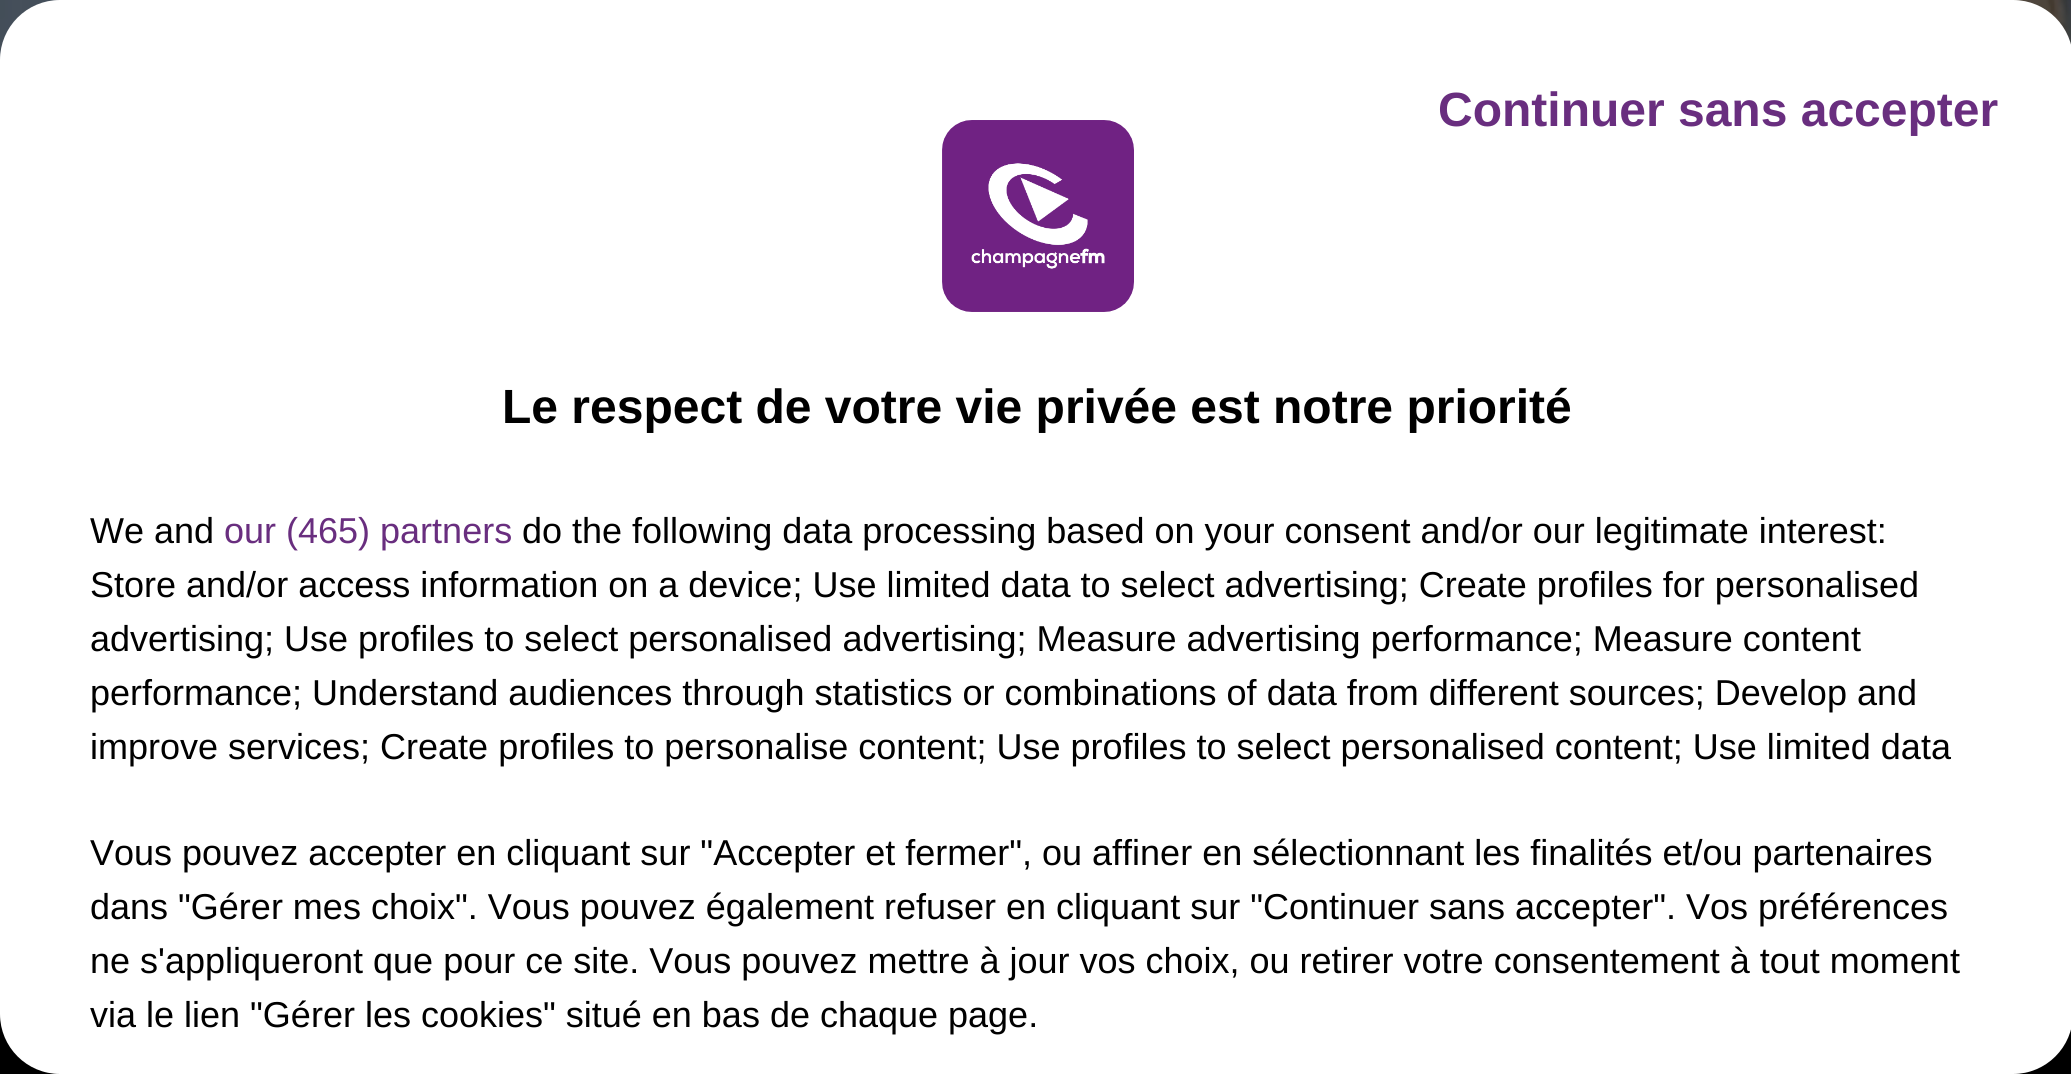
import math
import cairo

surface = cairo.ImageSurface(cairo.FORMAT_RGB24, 2071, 1074)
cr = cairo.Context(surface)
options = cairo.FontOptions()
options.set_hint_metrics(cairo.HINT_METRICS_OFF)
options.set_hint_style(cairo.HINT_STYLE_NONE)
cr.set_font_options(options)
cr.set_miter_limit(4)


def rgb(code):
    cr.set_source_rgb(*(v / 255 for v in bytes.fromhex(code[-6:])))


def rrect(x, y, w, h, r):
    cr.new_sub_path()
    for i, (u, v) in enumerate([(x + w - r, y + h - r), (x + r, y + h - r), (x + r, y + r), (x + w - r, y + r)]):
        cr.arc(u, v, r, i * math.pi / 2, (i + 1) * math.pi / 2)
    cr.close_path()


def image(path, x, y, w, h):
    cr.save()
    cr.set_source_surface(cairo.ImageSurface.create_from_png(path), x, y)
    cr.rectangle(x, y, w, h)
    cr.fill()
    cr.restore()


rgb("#ffffff")
cr.paint()
image("img/1.png", 0, 0, 2071, 60)
rgb("#000000")
cr.rectangle(0, 1014, 2071, 60)
cr.fill()
rgb("#ffffff")
rrect(0, 0, 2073, 1074, 60)
cr.fill()
image("img/2.png", 942, 120, 192, 192)
cr.select_font_face("Liberation Sans", cairo.FONT_SLANT_NORMAL, cairo.FONT_WEIGHT_BOLD)
cr.set_font_size(48)
rgb("#692e7f")
cr.move_to(1438, 126)
cr.show_text("Continuer sans accepter")
rgb("#000000")
cr.move_to(502, 423)
cr.show_text("Le respect de votre vie privée est notre priorité")
cr.select_font_face("Liberation Sans")
cr.set_font_size(36)
cr.move_to(90, 543)
cr.show_text("We and")
rgb("#692e7f")
cr.move_to(224, 543)
cr.show_text("our (465) partners")
rgb("#000000")
for x, y, s in [
    (522, 543, "do the following data processing based on your consent and/or our legitimate interest:"),
    (90, 597, "Store and/or access information on a device; Use limited data to select advertising; Create profiles for personalised"),
    (90, 651, "advertising; Use profiles to select personalised advertising; Measure advertising performance; Measure content"),
    (90, 705, "performance; Understand audiences through statistics or combinations of data from different sources; Develop and"),
    (90, 759, "improve services; Create profiles to personalise content; Use profiles to select personalised content; Use limited data"),
    (90, 865, "Vous pouvez accepter en cliquant sur \"Accepter et fermer\", ou affiner en sélectionnant les finalités et/ou partenaires"),
    (90, 919, "dans \"Gérer mes choix\". Vous pouvez également refuser en cliquant sur \"Continuer sans accepter\". Vos préférences"),
    (90, 973, "ne s'appliqueront que pour ce site. Vous pouvez mettre à jour vos choix, ou retirer votre consentement à tout moment"),
    (90, 1027, "via le lien \"Gérer les cookies\" situé en bas de chaque page."),
]:
    cr.move_to(x, y)
    cr.show_text(s)
surface.write_to_png("page.png")
